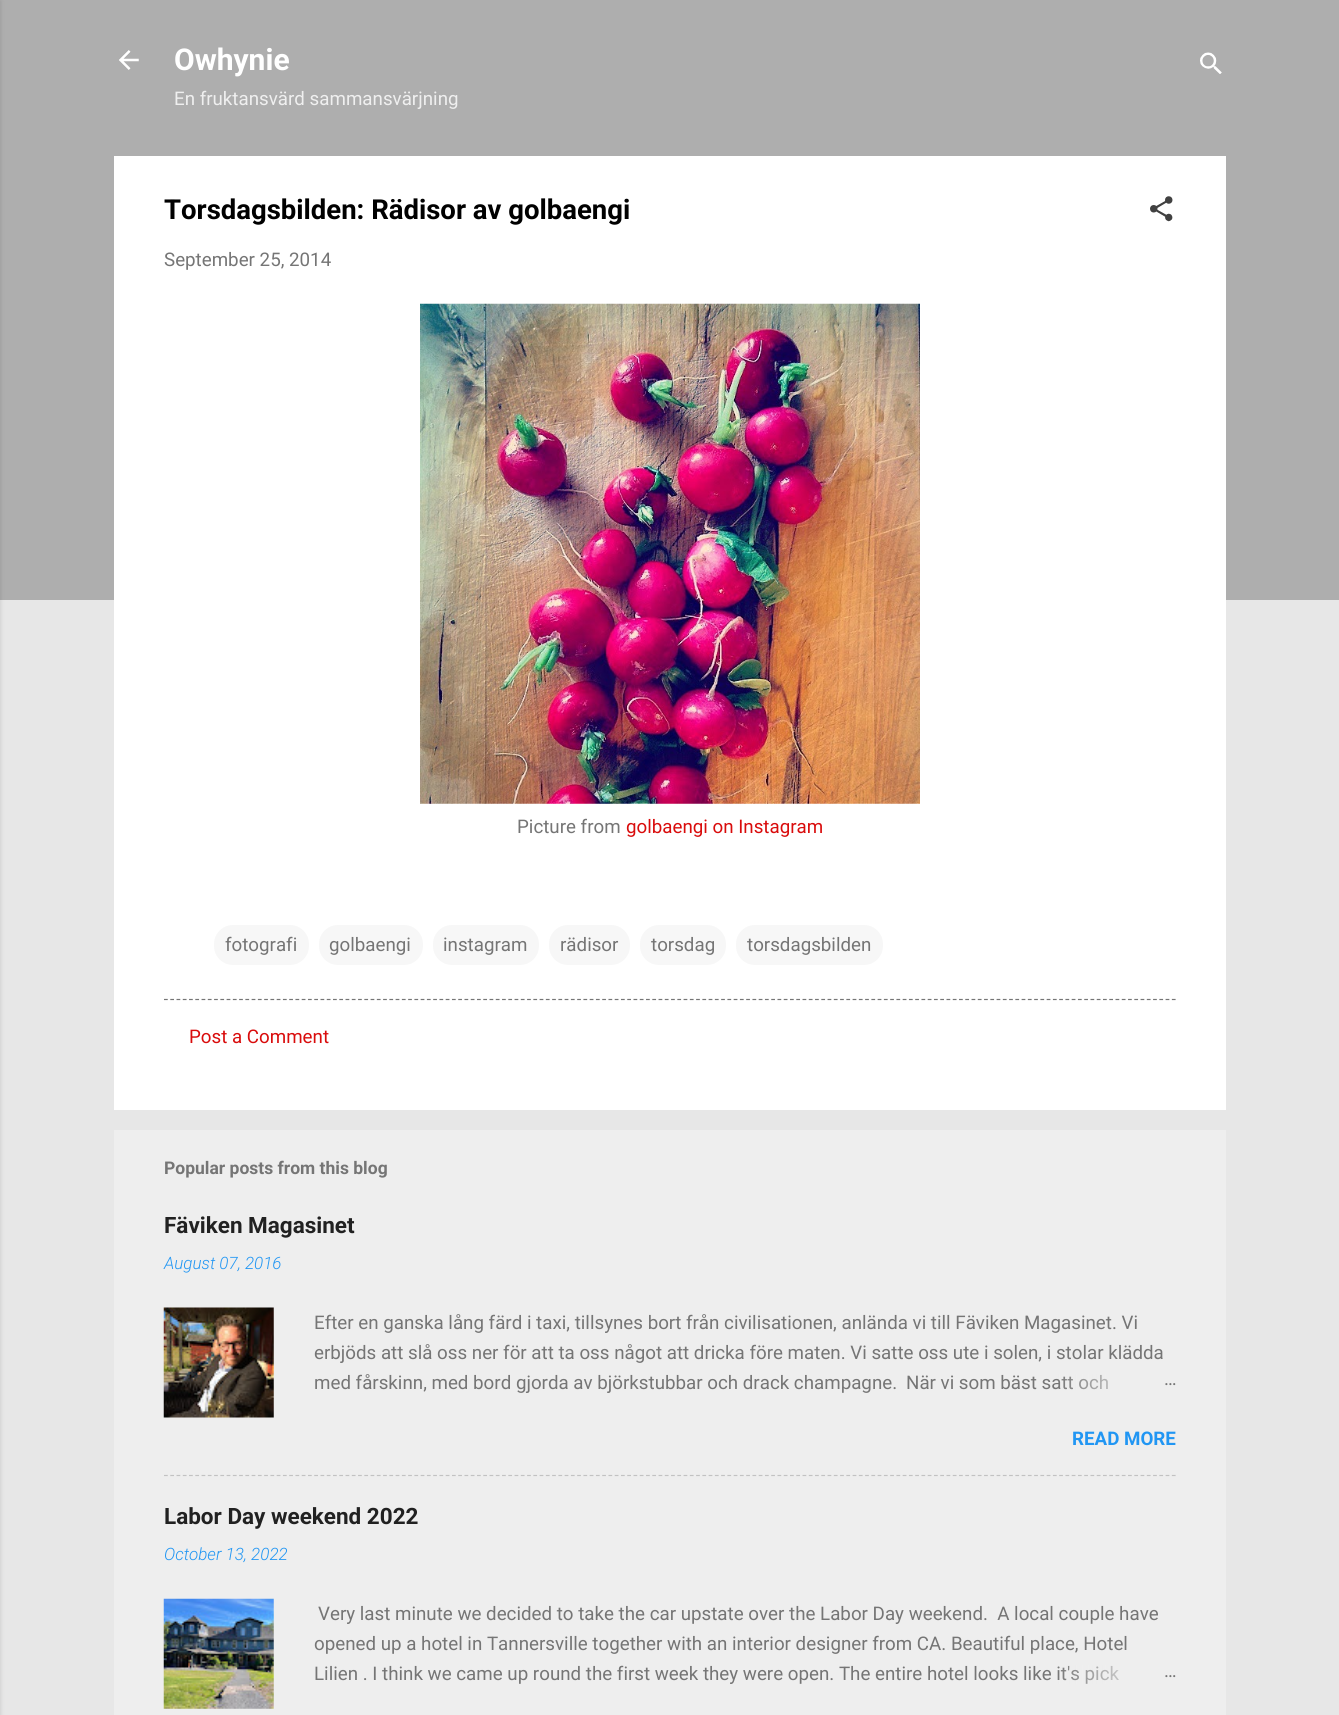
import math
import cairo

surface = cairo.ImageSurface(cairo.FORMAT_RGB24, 1339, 1715)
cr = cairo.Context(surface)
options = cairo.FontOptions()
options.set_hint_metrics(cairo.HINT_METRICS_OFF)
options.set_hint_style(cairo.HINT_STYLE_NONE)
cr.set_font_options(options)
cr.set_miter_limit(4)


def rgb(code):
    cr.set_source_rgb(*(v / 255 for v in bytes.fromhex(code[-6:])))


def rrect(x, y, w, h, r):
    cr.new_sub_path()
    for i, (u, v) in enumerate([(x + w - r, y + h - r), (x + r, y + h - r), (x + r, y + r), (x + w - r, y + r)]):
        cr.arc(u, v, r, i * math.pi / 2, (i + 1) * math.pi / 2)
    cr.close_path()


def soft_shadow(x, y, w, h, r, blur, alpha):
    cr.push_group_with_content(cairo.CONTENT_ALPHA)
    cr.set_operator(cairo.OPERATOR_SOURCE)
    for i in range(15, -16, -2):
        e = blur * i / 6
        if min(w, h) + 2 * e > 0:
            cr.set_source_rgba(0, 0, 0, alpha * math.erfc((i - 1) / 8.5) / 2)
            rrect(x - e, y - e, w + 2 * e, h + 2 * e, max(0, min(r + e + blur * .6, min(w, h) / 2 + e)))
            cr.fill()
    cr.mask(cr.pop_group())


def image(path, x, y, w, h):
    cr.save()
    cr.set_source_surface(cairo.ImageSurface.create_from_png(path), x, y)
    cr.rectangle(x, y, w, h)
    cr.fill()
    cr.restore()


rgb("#e7e7e7")
cr.paint()
rgb("#aeaeae")
cr.rectangle(0, 0, 1339, 600)
cr.fill()
rgb("#000000")
soft_shadow(-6, 1, 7, 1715, 0, 2, 0.1)
image("img/1.png", 119, 50, 20, 20)
image("img/2.png", 1200, 52, 22, 22)
rgb("#ffffff")
cr.rectangle(114, 156, 1112, 954)
cr.fill()
image("img/3.png", 1150, 196, 23, 26)
image("img/4.png", 420, 303, 500, 501)
rgb("#f7f7f7")
rrect(214, 925, 95, 40, 19)
cr.fill()
rrect(319, 925, 104, 40, 19)
cr.fill()
rrect(433, 925, 106, 40, 19)
cr.fill()
rrect(549, 925, 81, 40, 19)
cr.fill()
rrect(640, 925, 86, 40, 19)
cr.fill()
rrect(736, 925, 147, 40, 19)
cr.fill()
cr.new_path()
cr.move_to(164, 999.5)
cr.line_to(1176, 999.5)
rgb("#757575")
cr.set_line_width(1.2)
cr.set_dash([3.75, 2.51])
cr.stroke()
rgb("#eeeeee")
cr.rectangle(114, 1130, 1112, 585)
cr.fill()
image("img/5.png", 163, 1307, 111, 111)
cr.new_path()
cr.move_to(164, 1475.5)
cr.line_to(1176, 1475.5)
rgb("#c2c2c2")
cr.stroke()
image("img/6.png", 163, 1598, 111, 111)
cr.select_font_face("Roboto", cairo.FONT_SLANT_NORMAL, cairo.FONT_WEIGHT_BOLD)
cr.set_font_size(30)
rgb("#ffffff")
cr.move_to(174, 70)
cr.show_text("Owhynie")
cr.select_font_face("Roboto")
cr.set_font_size(18.75)
rgb("#efefef")
cr.move_to(174, 105)
cr.show_text("En fruktansvärd sammansvärjning")
cr.select_font_face("Roboto", cairo.FONT_SLANT_NORMAL, cairo.FONT_WEIGHT_BOLD)
cr.set_font_size(27.5)
rgb("#000000")
cr.move_to(164, 219)
cr.show_text("Torsdagsbilden: Rädisor av golbaengi")
cr.select_font_face("Roboto")
cr.set_font_size(18.75)
rgb("#757575")
cr.move_to(164, 266)
cr.show_text("September 25, 2014")
cr.move_to(517, 833)
cr.show_text("Picture from")
rgb("#d90c0c")
cr.move_to(626, 833)
cr.show_text("golbaengi on Instagram")
rgb("#757575")
for x, y, s in [
    (225, 951, "fotografi"),
    (329, 951, "golbaengi"),
    (443, 951, "instagram"),
    (560, 951, "rädisor"),
    (651, 951, "torsdag"),
    (747, 951, "torsdagsbilden"),
]:
    cr.move_to(x, y)
    cr.show_text(s)
rgb("#d90c0c")
cr.move_to(189, 1043)
cr.show_text("Post a Comment")
cr.select_font_face("Roboto", cairo.FONT_SLANT_NORMAL, cairo.FONT_WEIGHT_BOLD)
cr.set_font_size(17.5)
rgb("#757575")
cr.move_to(164, 1174)
cr.show_text("Popular posts from this blog")
cr.set_font_size(22.5)
rgb("#212121")
cr.move_to(164, 1233)
cr.show_text("Fäviken Magasinet")
cr.select_font_face("Roboto Light", cairo.FONT_SLANT_ITALIC)
cr.set_font_size(17)
rgb("#2196f3")
cr.move_to(164, 1269)
cr.show_text("August 07, 2016")
cr.select_font_face("Roboto")
cr.set_font_size(18.75)
rgb("#757575")
for x, y, s in [
    (314, 1329, "Efter en ganska lång färd i taxi, tillsynes bort från civilisationen, anlända vi till Fäviken Magasinet. Vi"),
    (314, 1359, "erbjöds att slå oss ner för att ta oss något att dricka före maten. Vi satte oss ute i solen, i stolar klädda"),
    (314, 1389, "med fårskinn, med bord gjorda av björkstubbar och drack champagne."),
    (906, 1389, "När vi som bäst satt och"),
]:
    cr.move_to(x, y)
    cr.show_text(s)
gradient = cairo.LinearGradient(1176, 1383, 1056, 1383)
gradient.add_color_stop_rgba(0, 0.933, 0.933, 0.933, 1)
gradient.add_color_stop_rgba(0.2, 0.933, 0.933, 0.933, 1)
gradient.add_color_stop_rgba(1, 0.933, 0.933, 0.933, 0)
cr.set_source(gradient)
cr.rectangle(1058, 1374, 51, 16)
cr.fill()
rgb("#757575")
cr.move_to(1164, 1385)
cr.show_text("…")
cr.select_font_face("Roboto", cairo.FONT_SLANT_NORMAL, cairo.FONT_WEIGHT_BOLD)
rgb("#2196f3")
cr.move_to(1072, 1445)
cr.show_text("READ MORE")
cr.set_font_size(22.5)
rgb("#212121")
cr.move_to(164, 1524)
cr.show_text("Labor Day weekend 2022")
cr.select_font_face("Roboto Light", cairo.FONT_SLANT_ITALIC)
cr.set_font_size(17)
rgb("#2196f3")
cr.move_to(164, 1560)
cr.show_text("October 13, 2022")
cr.select_font_face("Roboto")
cr.set_font_size(18.75)
rgb("#757575")
for x, y, s in [
    (318, 1620, "Very last minute we decided to take the car upstate over the Labor Day weekend.  A local couple have"),
    (314, 1650, "opened up a hotel in Tannersville together with an interior designer from CA. Beautiful place, Hotel"),
    (314, 1680, "Lilien . I think we came up round the first week they were open. The entire hotel looks like it's pick"),
]:
    cr.move_to(x, y)
    cr.show_text(s)
gradient = cairo.LinearGradient(1176, 1674, 1056, 1674)
gradient.add_color_stop_rgba(0, 0.933, 0.933, 0.933, 1)
gradient.add_color_stop_rgba(0.2, 0.933, 0.933, 0.933, 1)
gradient.add_color_stop_rgba(1, 0.933, 0.933, 0.933, 0)
cr.set_source(gradient)
cr.rectangle(1058, 1665, 61, 19)
cr.fill()
rgb("#757575")
cr.move_to(1164, 1677)
cr.show_text("…")
surface.write_to_png("page.png")
